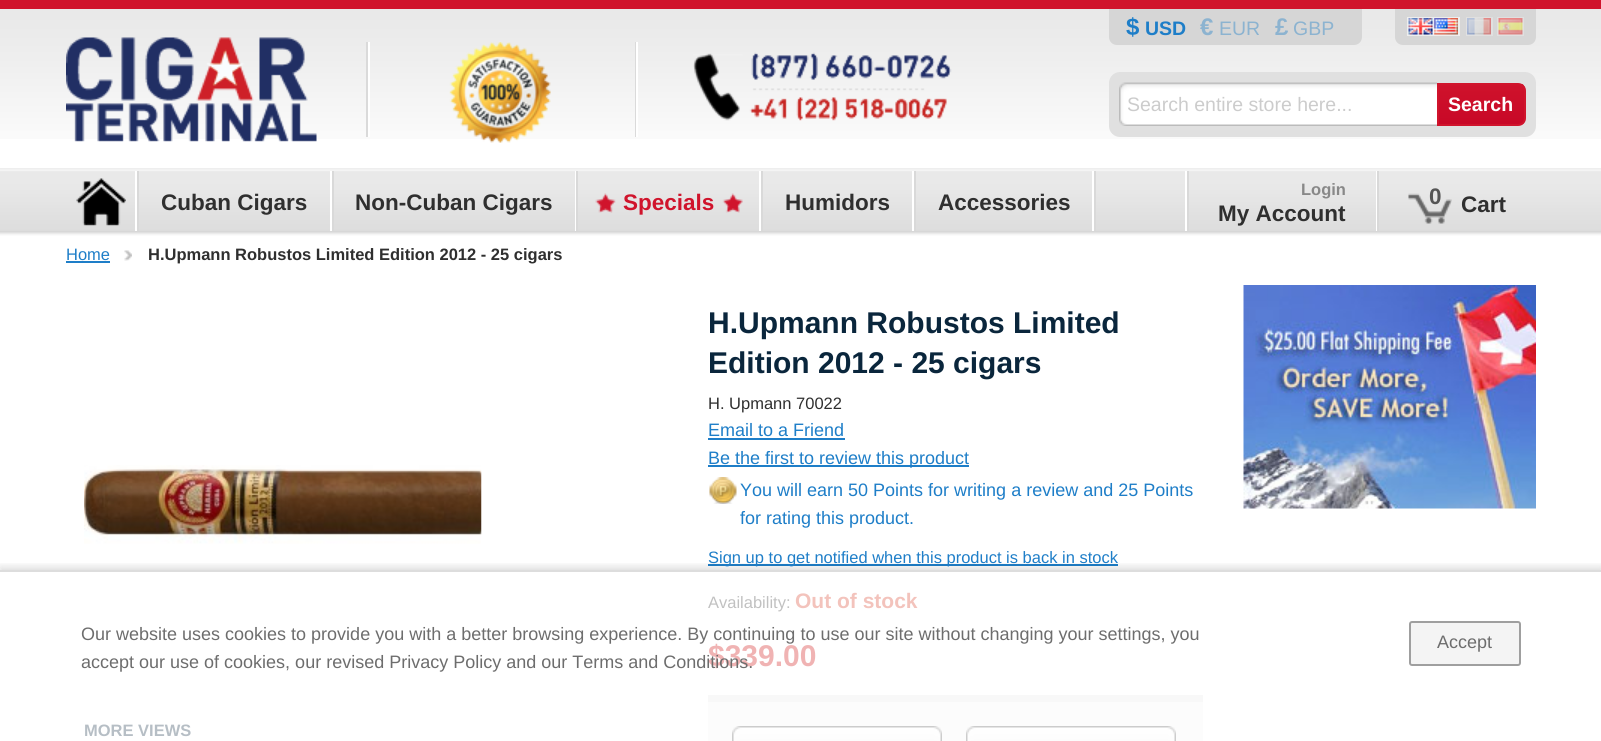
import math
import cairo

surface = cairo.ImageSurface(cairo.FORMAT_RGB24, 1601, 741)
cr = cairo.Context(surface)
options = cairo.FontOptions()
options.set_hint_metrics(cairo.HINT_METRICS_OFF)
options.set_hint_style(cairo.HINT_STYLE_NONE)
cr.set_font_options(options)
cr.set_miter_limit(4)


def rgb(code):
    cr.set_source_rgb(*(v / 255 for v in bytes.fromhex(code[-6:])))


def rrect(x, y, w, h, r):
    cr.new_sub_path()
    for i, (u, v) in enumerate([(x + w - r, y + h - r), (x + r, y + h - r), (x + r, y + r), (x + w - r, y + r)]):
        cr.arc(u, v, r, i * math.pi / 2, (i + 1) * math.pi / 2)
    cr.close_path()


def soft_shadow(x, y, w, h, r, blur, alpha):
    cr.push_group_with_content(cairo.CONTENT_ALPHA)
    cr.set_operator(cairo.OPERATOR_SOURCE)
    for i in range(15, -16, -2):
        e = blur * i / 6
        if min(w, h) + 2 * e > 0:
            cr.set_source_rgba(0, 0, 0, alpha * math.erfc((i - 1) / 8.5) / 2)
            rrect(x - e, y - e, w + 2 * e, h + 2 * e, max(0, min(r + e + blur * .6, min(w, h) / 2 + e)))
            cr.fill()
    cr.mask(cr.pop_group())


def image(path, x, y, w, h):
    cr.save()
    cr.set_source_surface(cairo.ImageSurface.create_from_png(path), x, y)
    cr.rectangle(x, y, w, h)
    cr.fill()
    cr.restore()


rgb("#ffffff")
cr.paint()
image("img/1.png", 0, 9, 1601, 130)
rgb("#d0142c")
cr.rectangle(0, 0, 1601, 9)
cr.fill()
image("img/2.png", 66, 37, 251, 105)
rgb("#dadada")
cr.rectangle(366, 42, 2, 95)
cr.fill()
rgb("#ffffff")
cr.rectangle(368, 42, 2, 95)
cr.fill()
image("img/3.png", 449, 42, 102, 101)
rgb("#dadada")
cr.rectangle(635, 42, 1, 95)
cr.fill()
rgb("#ffffff")
cr.rectangle(636, 42, 2, 95)
cr.fill()
image("img/4.png", 693, 52, 259, 69)
rgb("#d6d6d6")
cr.new_path()
cr.move_to(1109, 9)
cr.line_to(1362, 9)
cr.line_to(1362, 37)
cr.curve_to(1362, 41.5, 1358.5, 45, 1354, 45)
cr.line_to(1117, 45)
cr.curve_to(1112.5, 45, 1109, 41.5, 1109, 37)
cr.close_path()
cr.fill()
cr.new_path()
cr.move_to(1395, 9)
cr.line_to(1536, 9)
cr.line_to(1536, 37)
cr.curve_to(1536, 41.5, 1532.5, 45, 1528, 45)
cr.line_to(1403, 45)
cr.curve_to(1398.5, 45, 1395, 41.5, 1395, 37)
cr.close_path()
cr.fill()
cr.rectangle(1408, 18, 51, 17)
rgb("#eeeeee")
cr.stroke()
cr.rectangle(1467, 18, 25, 17)
rgb("#e0e0e0")
cr.stroke()
cr.rectangle(1498, 18, 25, 17)
cr.stroke()
image("img/5.png", 1408, 18, 50, 17)
image("img/6.png", 1467, 18, 24, 17)
image("img/7.png", 1498, 18, 25, 17)
rrect(1109, 72, 427, 65, 11)
cr.fill()
image("img/8.png", 1119, 82, 318, 44)
image("img/9.png", 1439, 84, 87, 41)
cr.new_path()
cr.move_to(1438, 84)
cr.line_to(1518, 84)
cr.curve_to(1522, 84, 1525, 87, 1525, 91)
cr.line_to(1525, 118)
cr.curve_to(1525, 122, 1522, 125, 1518, 125)
cr.line_to(1438, 125)
cr.close_path()
rgb("#d0142c")
cr.stroke()
image("img/10.png", 0, 168, 1601, 68)
image("img/11.png", 76, 178, 50, 48)
for x, y, w, h, color in [
    (135, 171, 2, 60, "#ffffff"),
    (137, 171, 2, 60, "#d9d9d9"),
    (330, 171, 2, 60, "#ffffff"),
    (332, 171, 2, 60, "#d9d9d9"),
    (575, 171, 1, 60, "#ffffff"),
    (576, 171, 2, 60, "#d9d9d9"),
]:
    rgb(color)
    cr.rectangle(x, y, w, h)
    cr.fill()
image("img/12.png", 595, 193, 148, 20)
for x, y, w, h, color in [
    (759, 171, 2, 60, "#ffffff"),
    (761, 171, 2, 60, "#d9d9d9"),
    (912, 171, 2, 60, "#ffffff"),
    (914, 171, 2, 60, "#d9d9d9"),
    (1092, 171, 2, 60, "#ffffff"),
    (1094, 171, 2, 60, "#d9d9d9"),
    (1185, 171, 2, 60, "#ffffff"),
    (1187, 171, 2, 60, "#d9d9d9"),
    (1376, 171, 1, 60, "#ffffff"),
    (1377, 171, 2, 60, "#d9d9d9"),
]:
    rgb(color)
    cr.rectangle(x, y, w, h)
    cr.fill()
image("img/13.png", 1408, 193, 44, 31)
rgb("#1e7ec8")
cr.rectangle(66, 261, 44, 2)
cr.fill()
image("img/14.png", 124, 250, 8, 11)
cr.rectangle(708, 438, 137, 2)
cr.fill()
cr.rectangle(708, 465, 261, 2)
cr.fill()
image("img/15.png", 709, 477, 28, 27)
for x, y, w, h, color in [
    (708, 564, 410, 2, "#1e7ec8"),
    (708, 702, 495, 39, "#fcfcfc"),
    (708, 695, 495, 7, "#f8f8f8"),
]:
    rgb(color)
    cr.rectangle(x, y, w, h)
    cr.fill()
image("img/16.png", 732, 726, 210, 15)
image("img/17.png", 966, 726, 210, 15)
image("img/18.png", 84, 465, 398, 79)
image("img/19.png", 1243, 285, 293, 224)
cr.save()
cr.rectangle(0, 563, 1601, 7)
cr.clip()
rgb("#000000")
soft_shadow(0, 567, 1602, 171, 0, 4, 0.14)
cr.restore()
rgb("#dddddd")
cr.rectangle(0, 570, 1601, 2)
cr.fill()
rgb("#f4f4f4")
rrect(1410, 622, 110, 43, 2)
cr.fill_preserve()
rgb("#9f9f9f")
cr.stroke()
cr.select_font_face("Liberation Sans", cairo.FONT_SLANT_NORMAL, cairo.FONT_WEIGHT_BOLD)
cr.set_font_size(24)
rgb("#1e7ec8")
cr.move_to(1126, 35)
cr.show_text("$")
cr.set_font_size(19.5)
cr.move_to(1145, 35)
cr.show_text("USD")
cr.set_font_size(24)
rgb("#8cb3d0")
cr.move_to(1200, 35)
cr.show_text("€")
cr.select_font_face("Liberation Sans")
cr.set_font_size(19.5)
cr.move_to(1219, 35)
cr.show_text("EUR")
cr.select_font_face("Liberation Sans", cairo.FONT_SLANT_NORMAL, cairo.FONT_WEIGHT_BOLD)
cr.set_font_size(24)
cr.move_to(1275, 35)
cr.show_text("£")
cr.select_font_face("Liberation Sans")
cr.set_font_size(19.5)
cr.move_to(1293, 35)
cr.show_text("GBP")
rgb("#cccccc")
cr.move_to(1127, 111)
cr.show_text("Search entire store here...")
cr.select_font_face("Liberation Sans", cairo.FONT_SLANT_NORMAL, cairo.FONT_WEIGHT_BOLD)
rgb("#ffffff")
cr.move_to(1448, 111)
cr.show_text("Search")
cr.set_font_size(22.5)
rgb("#2f2f2f")
cr.move_to(161, 210)
cr.show_text("Cuban Cigars")
cr.move_to(355, 210)
cr.show_text("Non-Cuban Cigars")
rgb("#d0142c")
cr.move_to(623, 210)
cr.show_text("Specials")
rgb("#2f2f2f")
cr.move_to(785, 210)
cr.show_text("Humidors")
cr.move_to(938, 210)
cr.show_text("Accessories")
cr.set_font_size(16.5)
rgb("#888888")
cr.move_to(1301, 195)
cr.show_text("Login")
cr.set_font_size(22.5)
rgb("#2f2f2f")
cr.move_to(1218, 221)
cr.show_text("My Account")
rgb("#555555")
cr.move_to(1429, 204)
cr.show_text("0")
rgb("#2f2f2f")
cr.move_to(1461, 212)
cr.show_text("Cart")
cr.select_font_face("Liberation Sans")
cr.set_font_size(16.5)
rgb("#1e7ec8")
cr.move_to(66, 260)
cr.show_text("Home")
cr.select_font_face("Liberation Sans", cairo.FONT_SLANT_NORMAL, cairo.FONT_WEIGHT_BOLD)
rgb("#2f2f2f")
cr.move_to(148, 260)
cr.show_text("H.Upmann Robustos Limited Edition 2012 - 25 cigars")
cr.set_font_size(30)
rgb("#0a263c")
cr.move_to(708, 333)
cr.show_text("H.Upmann Robustos Limited")
cr.move_to(708, 373)
cr.show_text("Edition 2012 - 25 cigars")
cr.select_font_face("Liberation Sans")
cr.set_font_size(16.5)
rgb("#2f2f2f")
cr.move_to(708, 409)
cr.show_text("H. Upmann 70022")
cr.set_font_size(18)
rgb("#1e7ec8")
for x, y, s in [
    (708, 436, "Email to a Friend"),
    (708, 464, "Be the first to review this product"),
    (740, 496, "You will earn 50 Points for writing a review and 25 Points"),
    (740, 524, "for rating this product."),
]:
    cr.move_to(x, y)
    cr.show_text(s)
cr.set_font_size(16.5)
cr.move_to(708, 563)
cr.show_text("Sign up to get notified when this product is back in stock")
rgb("#c1c1c1")
cr.move_to(708, 608)
cr.show_text("Availability:")
cr.select_font_face("Liberation Sans", cairo.FONT_SLANT_NORMAL, cairo.FONT_WEIGHT_BOLD)
cr.set_font_size(21)
rgb("#f3c3bc")
cr.move_to(795, 608)
cr.show_text("Out of stock")
cr.set_font_size(30)
rgb("#f0b3b3")
cr.move_to(708, 666)
cr.show_text("$339.00")
cr.set_font_size(16.5)
rgb("#b6bec5")
cr.move_to(84, 736)
cr.show_text("MORE VIEWS")
cr.select_font_face("Liberation Sans")
cr.set_font_size(18)
rgb("#6d6d6d")
for x, y, s in [
    (81, 640, "Our website uses cookies to provide you with a better browsing experience. By continuing to use our site without changing your settings, you"),
    (81, 668, "accept our use of cookies, our revised Privacy Policy and our Terms and Conditions."),
    (1437, 648, "Accept"),
]:
    cr.move_to(x, y)
    cr.show_text(s)
surface.write_to_png("page.png")
